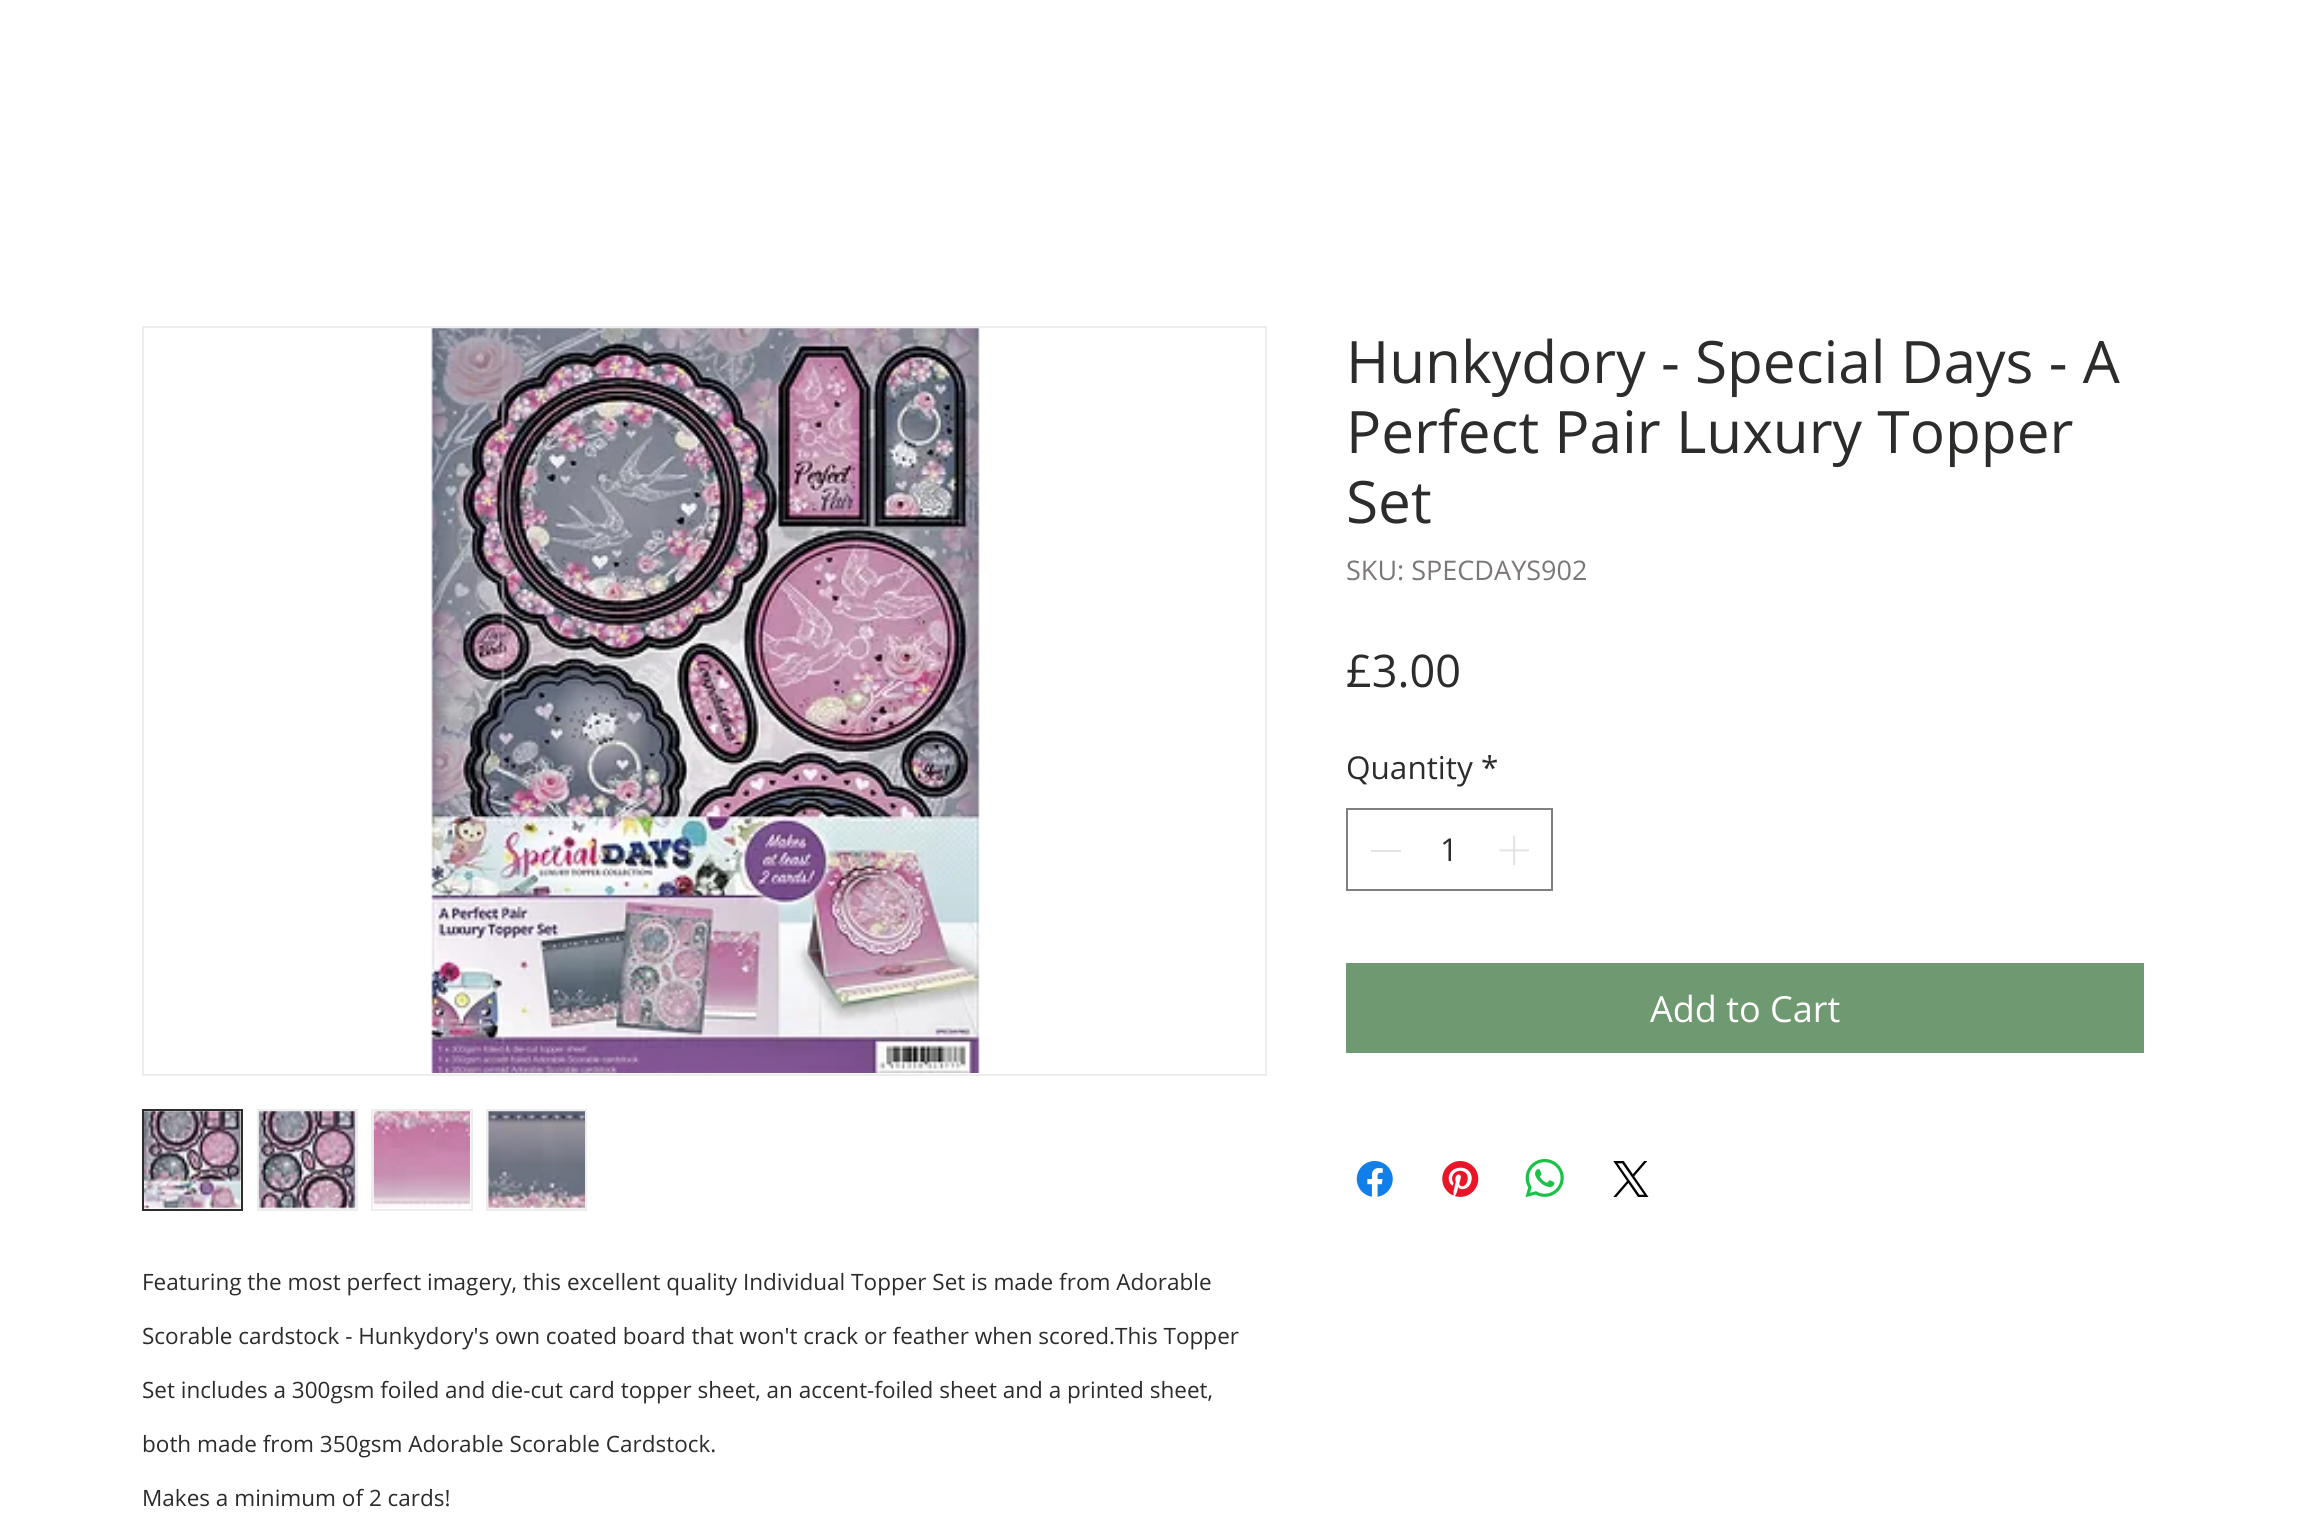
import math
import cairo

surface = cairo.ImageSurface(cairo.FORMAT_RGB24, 2308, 1532)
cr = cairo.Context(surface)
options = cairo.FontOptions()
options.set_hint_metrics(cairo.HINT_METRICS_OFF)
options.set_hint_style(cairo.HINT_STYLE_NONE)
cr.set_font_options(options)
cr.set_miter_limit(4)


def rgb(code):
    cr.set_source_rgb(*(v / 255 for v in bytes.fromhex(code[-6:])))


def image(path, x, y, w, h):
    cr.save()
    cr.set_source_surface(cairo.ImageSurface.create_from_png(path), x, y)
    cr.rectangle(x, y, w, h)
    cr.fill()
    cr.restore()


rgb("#ffffff")
cr.paint()
cr.rectangle(1347, 809, 205, 81)
rgb("#808080")
cr.stroke()
rgb("#e3e3e3")
cr.rectangle(1371, 850, 30, 2)
cr.fill()
image("img/1.png", 1499, 835, 30, 30)
rgb("#6f9971")
cr.rectangle(1346, 963, 798, 90)
cr.fill()
image("img/2.png", 1356, 1161, 37, 36)
image("img/3.png", 1442, 1161, 37, 36)
image("img/4.png", 1525, 1159, 39, 39)
image("img/5.png", 1613, 1161, 36, 36)
cr.rectangle(143, 327, 1123, 748)
rgb("#ededec")
cr.stroke()
image("img/6.png", 431, 328, 549, 745)
cr.rectangle(143, 1110, 99, 100)
rgb("#2c2c2b")
cr.stroke()
image("img/7.png", 144, 1111, 97, 98)
cr.rectangle(258, 1110, 99, 100)
rgb("#ededec")
cr.stroke()
image("img/8.png", 258, 1111, 98, 98)
cr.rectangle(372, 1110, 100, 100)
cr.stroke()
image("img/9.png", 373, 1111, 98, 97)
cr.rectangle(487, 1110, 99, 100)
cr.stroke()
image("img/10.png", 488, 1111, 97, 98)
cr.select_font_face("Open Sans")
cr.set_font_size(58.5)
rgb("#2c2c2b")
for x, y, s in [
    (1346, 383, "Hunkydory - Special Days - A"),
    (1346, 453, "Perfect Pair Luxury Topper"),
    (1346, 523, "Set"),
]:
    cr.move_to(x, y)
    cr.show_text(s)
cr.set_font_size(27)
rgb("#7c7878")
cr.move_to(1346, 580)
cr.show_text("SKU: SPECDAYS902")
cr.set_font_size(45)
rgb("#2c2c2b")
cr.move_to(1346, 687)
cr.show_text("£3.00")
cr.set_font_size(31.5)
for x, y, s in [
    (1346, 779, "Quantity"),
    (1481, 779, "*"),
    (1440, 861, "1"),
]:
    cr.move_to(x, y)
    cr.show_text(s)
cr.set_font_size(36)
rgb("#ffffff")
cr.move_to(1650, 1022)
cr.show_text("Add to Cart")
cr.set_font_size(22.5)
rgb("#2c2c2b")
for x, y, s in [
    (142, 1290, "Featuring the most perfect imagery, this excellent quality Individual Topper Set is made from Adorable"),
    (142, 1344, "Scorable cardstock - Hunkydory's own coated board that won't crack or feather when scored.This Topper"),
    (142, 1398, "Set includes a 300gsm foiled and die-cut card topper sheet, an accent-foiled sheet and a printed sheet,"),
    (142, 1452, "both made from 350gsm Adorable Scorable Cardstock."),
    (142, 1506, "Makes a minimum of 2 cards!"),
]:
    cr.move_to(x, y)
    cr.show_text(s)
surface.write_to_png("page.png")
